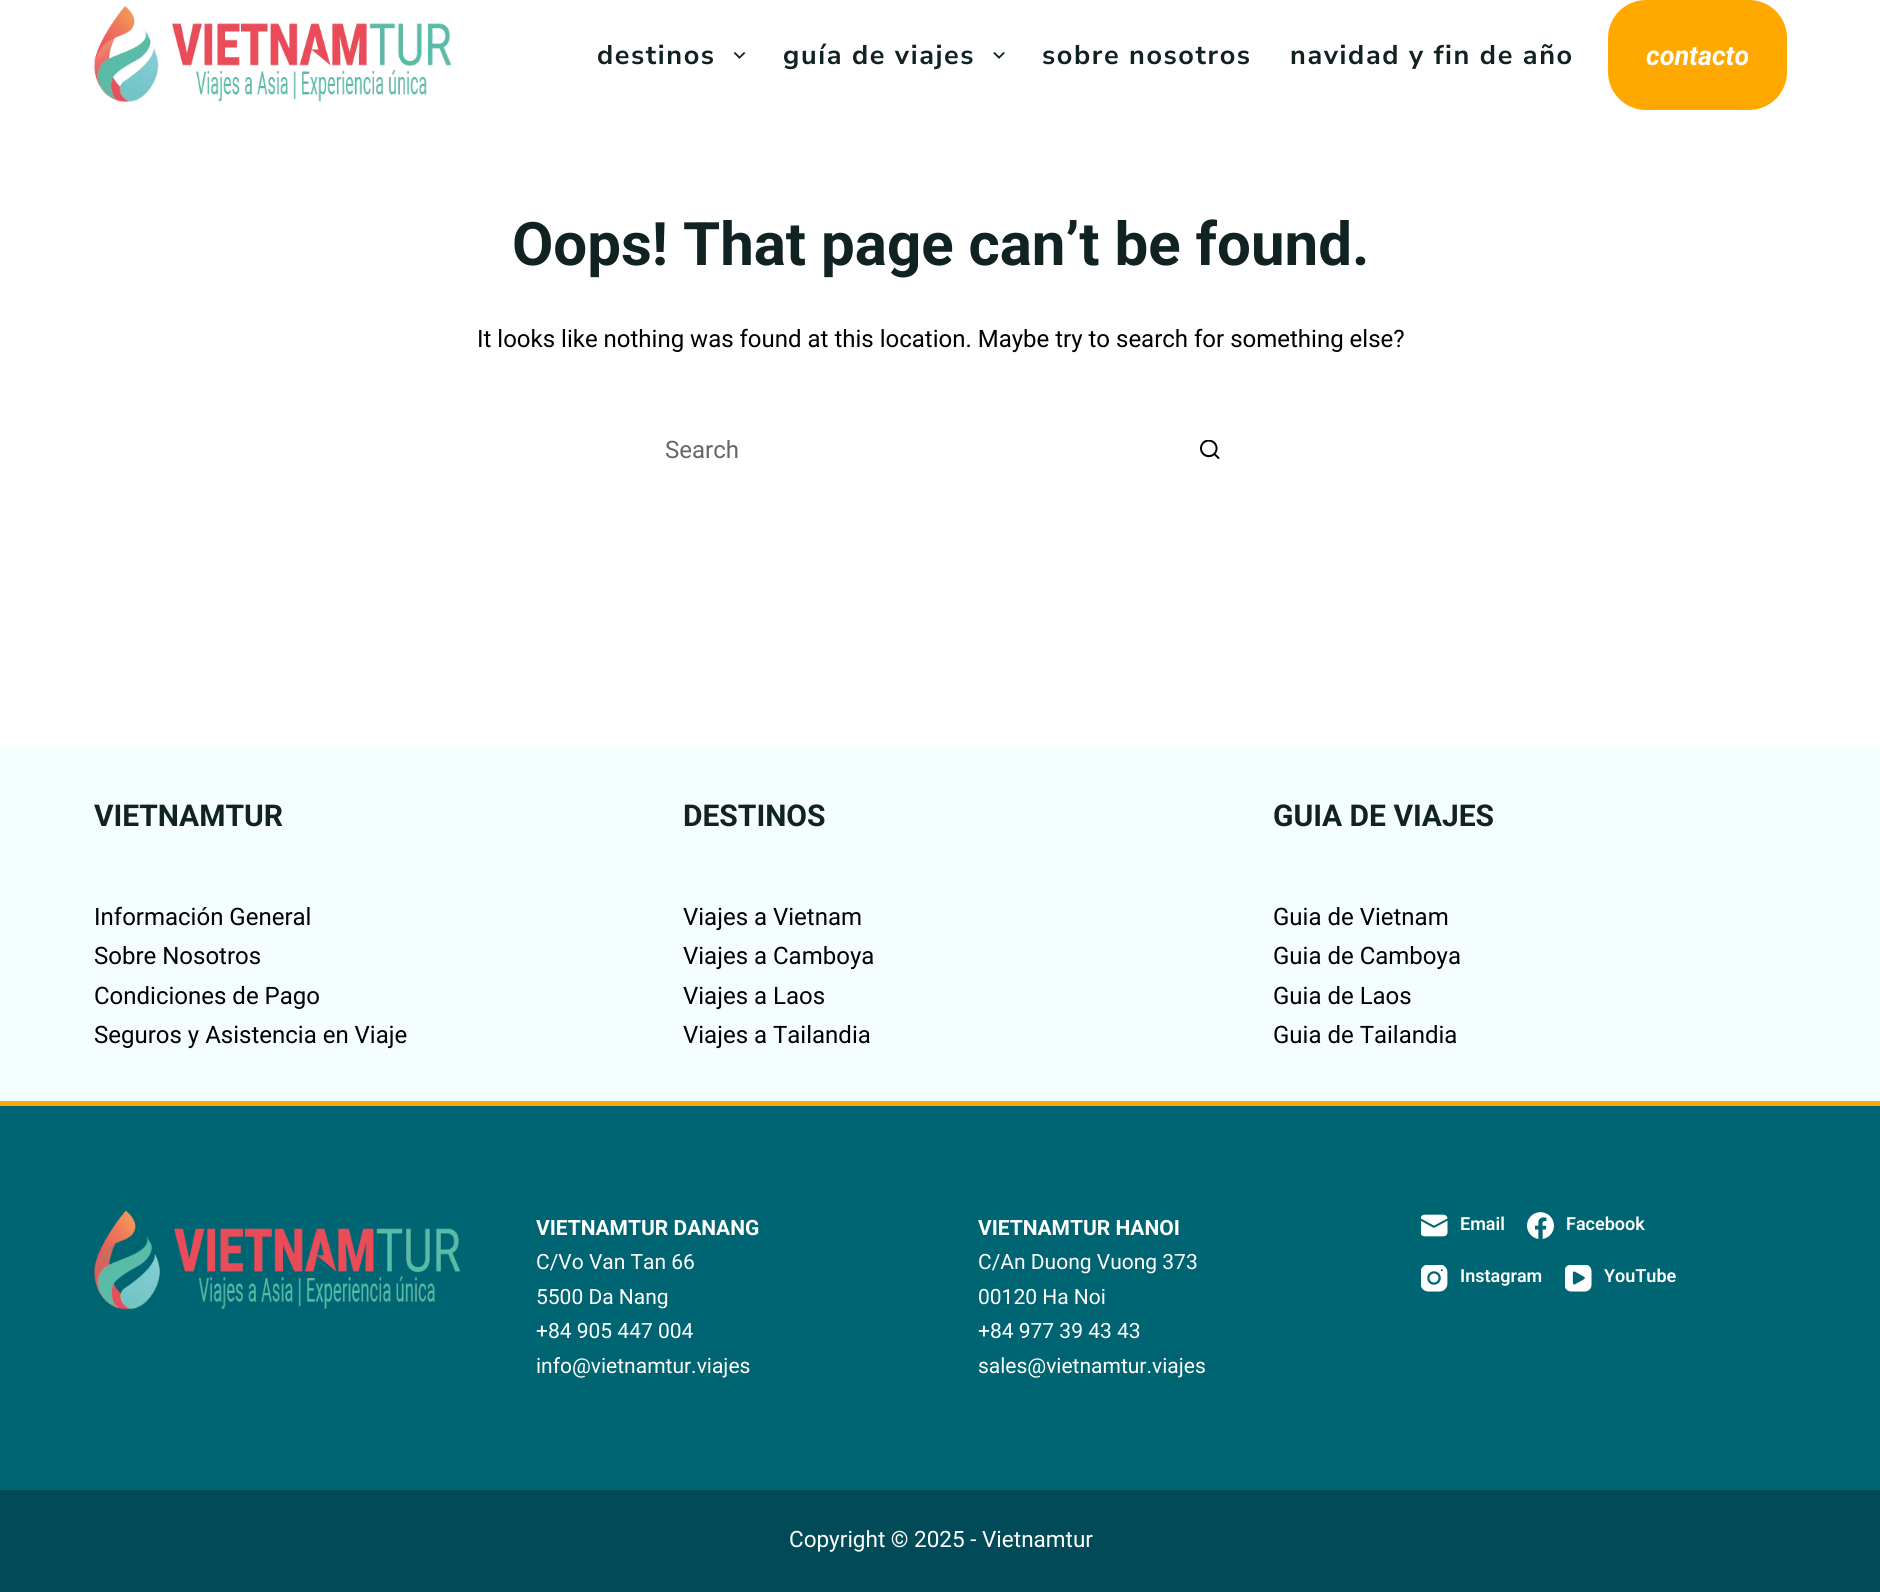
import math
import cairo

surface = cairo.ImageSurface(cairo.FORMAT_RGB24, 1880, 1592)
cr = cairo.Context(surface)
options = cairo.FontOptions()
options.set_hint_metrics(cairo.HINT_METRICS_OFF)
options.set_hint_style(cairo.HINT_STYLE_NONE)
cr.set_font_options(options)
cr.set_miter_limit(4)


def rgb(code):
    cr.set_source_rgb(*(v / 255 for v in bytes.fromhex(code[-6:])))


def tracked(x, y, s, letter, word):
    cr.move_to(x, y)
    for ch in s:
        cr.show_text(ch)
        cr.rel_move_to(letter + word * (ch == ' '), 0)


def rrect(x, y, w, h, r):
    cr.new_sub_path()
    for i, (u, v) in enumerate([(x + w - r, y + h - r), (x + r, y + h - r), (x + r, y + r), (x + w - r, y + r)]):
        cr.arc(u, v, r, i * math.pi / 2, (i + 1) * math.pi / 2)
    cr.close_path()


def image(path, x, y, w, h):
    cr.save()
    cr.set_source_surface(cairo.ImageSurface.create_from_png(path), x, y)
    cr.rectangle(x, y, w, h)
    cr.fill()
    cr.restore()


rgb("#ffffff")
cr.paint()
image("img/1.png", 94, 6, 358, 96)
image("img/2.png", 734, 52, 12, 7)
image("img/3.png", 993, 52, 12, 7)
rgb("#ffa800")
rrect(1608, 0, 179, 110, 38)
cr.fill()
image("img/4.png", 1200, 440, 20, 19)
cr.new_path()
cr.move_to(1208.5, 439)
cr.curve_to(1214.5, 438, 1220.5, 442, 1221.5, 448)
rgb("#ffffff")
cr.set_line_width(2.2)
cr.set_line_cap(cairo.LINE_CAP_ROUND)
cr.stroke()
for x, y, w, h, color in [
    (0, 747, 1880, 354, "#f4feff"),
    (0, 1106, 1880, 384, "#006573"),
    (0, 1101, 1880, 5, "#ffa800"),
]:
    rgb(color)
    cr.rectangle(x, y, w, h)
    cr.fill()
image("img/5.png", 94, 1210, 367, 100)
image("img/6.png", 1421, 1214, 27, 23)
image("img/7.png", 1527, 1212, 27, 27)
image("img/8.png", 1421, 1265, 27, 27)
image("img/9.png", 1565, 1265, 27, 27)
rgb("#004b57")
cr.rectangle(0, 1490, 1880, 102)
cr.fill()
cr.select_font_face("Nunito Sans", cairo.FONT_SLANT_NORMAL, cairo.FONT_WEIGHT_BOLD)
cr.set_font_size(27)
rgb("#112222")
for x, y, s in [
    (597, 64, "destinos"),
    (783, 64, "guía de viajes"),
    (1042, 64, "sobre nosotros"),
    (1290, 64, "navidad y fin de año"),
]:
    tracked(x, y, s, 1.6, 0)
cr.select_font_face("Roboto", cairo.FONT_SLANT_ITALIC, cairo.FONT_WEIGHT_BOLD)
rgb("#ffffff")
cr.move_to(1646, 65)
cr.show_text("contacto")
cr.select_font_face("Roboto", cairo.FONT_SLANT_NORMAL, cairo.FONT_WEIGHT_BOLD)
cr.set_font_size(60)
rgb("#112222")
cr.move_to(512, 265)
cr.show_text("Oops! That page can’t be found.")
cr.select_font_face("Roboto")
cr.set_font_size(24)
rgb("#000000")
cr.move_to(477, 347)
cr.show_text("It looks like nothing was found at this location. Maybe try to search for something else?")
rgb("#666666")
cr.move_to(665, 458)
cr.show_text("Search")
cr.select_font_face("Roboto", cairo.FONT_SLANT_NORMAL, cairo.FONT_WEIGHT_BOLD)
cr.set_font_size(30)
rgb("#112222")
cr.move_to(94, 826)
cr.show_text("VIETNAMTUR")
cr.select_font_face("Roboto")
cr.set_font_size(24)
rgb("#000000")
for x, y, s in [
    (94, 925, "Información General"),
    (94, 964, "Sobre Nosotros"),
    (94, 1004, "Condiciones de Pago"),
    (94, 1043, "Seguros y Asistencia en Viaje"),
]:
    cr.move_to(x, y)
    cr.show_text(s)
cr.select_font_face("Roboto", cairo.FONT_SLANT_NORMAL, cairo.FONT_WEIGHT_BOLD)
cr.set_font_size(30)
rgb("#112222")
cr.move_to(683, 826)
cr.show_text("DESTINOS")
cr.select_font_face("Roboto")
cr.set_font_size(24)
rgb("#000000")
for x, y, s in [
    (683, 925, "Viajes a Vietnam"),
    (683, 964, "Viajes a Camboya"),
    (683, 1004, "Viajes a Laos"),
    (683, 1043, "Viajes a Tailandia"),
]:
    cr.move_to(x, y)
    cr.show_text(s)
cr.select_font_face("Roboto", cairo.FONT_SLANT_NORMAL, cairo.FONT_WEIGHT_BOLD)
cr.set_font_size(30)
rgb("#112222")
cr.move_to(1273, 826)
cr.show_text("GUIA DE VIAJES")
cr.select_font_face("Roboto")
cr.set_font_size(24)
rgb("#000000")
for x, y, s in [
    (1273, 925, "Guia de Vietnam"),
    (1273, 964, "Guia de Camboya"),
    (1273, 1004, "Guia de Laos"),
    (1273, 1043, "Guia de Tailandia"),
]:
    cr.move_to(x, y)
    cr.show_text(s)
cr.select_font_face("Roboto", cairo.FONT_SLANT_NORMAL, cairo.FONT_WEIGHT_BOLD)
cr.set_font_size(21)
rgb("#ffffff")
cr.move_to(536, 1235)
cr.show_text("VIETNAMTUR DANANG")
cr.select_font_face("Roboto")
for x, y, s in [
    (536, 1269, "C/Vo Van Tan 66"),
    (536, 1304, "5500 Da Nang"),
    (536, 1338, "+84 905 447 004"),
    (536, 1373, "info@vietnamtur.viajes"),
]:
    cr.move_to(x, y)
    cr.show_text(s)
cr.select_font_face("Roboto", cairo.FONT_SLANT_NORMAL, cairo.FONT_WEIGHT_BOLD)
cr.move_to(978, 1235)
cr.show_text("VIETNAMTUR HANOI")
cr.select_font_face("Roboto")
for x, y, s in [
    (978, 1269, "C/An Duong Vuong 373"),
    (978, 1304, "00120 Ha Noi"),
    (978, 1338, "+84 977 39 43 43"),
    (978, 1373, "sales@vietnamtur.viajes"),
]:
    cr.move_to(x, y)
    cr.show_text(s)
cr.select_font_face("Roboto SemiBold")
cr.set_font_size(18)
for x, y, s in [
    (1460, 1230, "Email"),
    (1566, 1230, "Facebook"),
    (1460, 1282, "Instagram"),
    (1604, 1282, "YouTube"),
]:
    cr.move_to(x, y)
    cr.show_text(s)
cr.select_font_face("Roboto")
cr.set_font_size(22.5)
cr.move_to(789, 1547)
cr.show_text("Copyright © 2025 - Vietnamtur")
surface.write_to_png("page.png")
